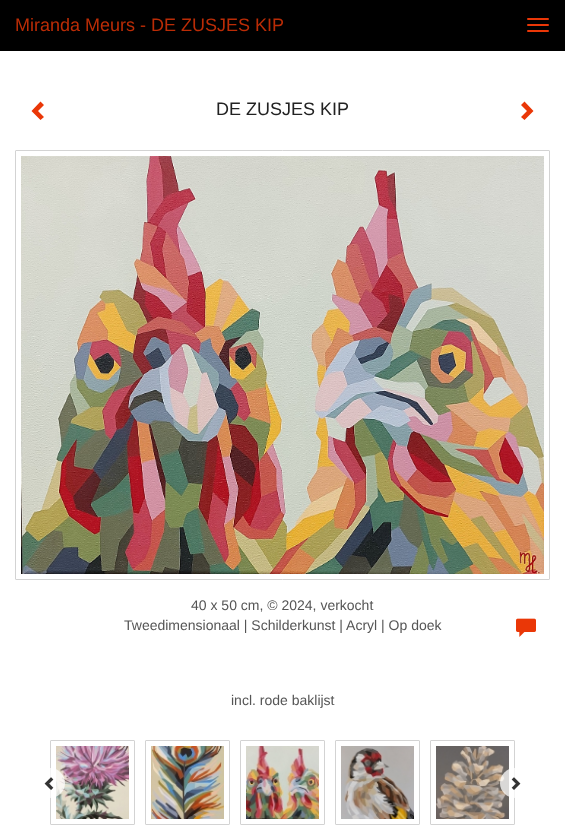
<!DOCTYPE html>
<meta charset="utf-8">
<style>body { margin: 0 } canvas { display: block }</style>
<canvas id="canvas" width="565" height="833"></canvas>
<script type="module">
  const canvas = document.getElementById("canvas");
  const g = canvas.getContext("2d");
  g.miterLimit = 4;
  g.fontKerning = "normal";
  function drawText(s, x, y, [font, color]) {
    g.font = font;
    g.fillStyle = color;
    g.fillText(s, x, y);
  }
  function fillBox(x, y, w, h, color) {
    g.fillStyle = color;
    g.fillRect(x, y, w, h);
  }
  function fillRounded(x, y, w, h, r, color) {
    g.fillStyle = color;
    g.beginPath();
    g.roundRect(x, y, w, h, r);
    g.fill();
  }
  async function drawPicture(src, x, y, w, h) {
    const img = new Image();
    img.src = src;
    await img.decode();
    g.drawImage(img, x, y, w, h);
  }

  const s1 = ["18px Liberation Sans", "#BB2C06"];
  const s2 = ["18px Liberation Sans", "#222222"];
  const s3 = ["14px Liberation Sans", "#555555"];

  fillBox(0, 0, 565, 833, "#000000");
  drawText("Miranda Meurs - DE ZUSJES KIP", 15, 31, s1);
  fillRounded(527, 18, 22, 2, 1, "#EA3707");
  fillRounded(527, 24, 22, 2, 1, "#EA3707");
  fillRounded(527, 30, 22, 2, 1, "#EA3707");
  fillBox(0, 51, 565, 782, "#FFFFFF");
  g.fillStyle = "#EA3707";
  g.beginPath();
  g.moveTo(44, 105);
  g.lineTo(38, 111);
  g.lineTo(44, 117);
  g.lineTo(40.5, 120);
  g.lineTo(31.5, 111);
  g.lineTo(40.5, 101.5);
  g.closePath();
  g.fill();
  drawText("DE ZUSJES KIP", 216, 115, s2);
  g.fillStyle = "#EA3707";
  g.beginPath();
  g.moveTo(533.5, 111);
  g.lineTo(524.5, 120);
  g.lineTo(521, 117);
  g.lineTo(527, 111);
  g.lineTo(521, 105);
  g.lineTo(524.5, 101.5);
  g.closePath();
  g.fill();
  g.beginPath();
  g.roundRect(15.5, 150.5, 534, 429, 0.5);
  g.strokeStyle = "#D3D3D3";
  g.stroke();
  await drawPicture("pic1.png", 21, 156, 523, 418);
  drawText("40 x 50 cm, © 2024, verkocht", 191, 610, s3);
  drawText("Tweedimensionaal | Schilderkunst | Acryl | Op doek", 124, 630, s3);
  await drawPicture("pic2.png", 516, 618, 20, 19);
  drawText("incl. rode baklijst", 231, 705, s3);
  g.beginPath();
  g.roundRect(50.5, 740.5, 84, 84, 0.5);
  g.stroke();
  await drawPicture("pic3.png", 56, 746, 73, 73);
  g.beginPath();
  g.roundRect(145.5, 740.5, 84, 84, 0.5);
  g.stroke();
  await drawPicture("pic4.png", 151, 746, 73, 73);
  g.beginPath();
  g.roundRect(240.5, 740.5, 84, 84, 0.5);
  g.stroke();
  await drawPicture("pic5.png", 246, 746, 73, 73);
  g.beginPath();
  g.roundRect(335.5, 740.5, 84, 84, 0.5);
  g.stroke();
  await drawPicture("pic6.png", 341, 746, 73, 73);
  g.beginPath();
  g.roundRect(430.5, 740.5, 84, 84, 0.5);
  g.stroke();
  await drawPicture("pic7.png", 436, 746, 73, 73);
  g.fillStyle = "rgba(255, 255, 255, 0.75)";
  g.beginPath();
  g.arc(50, 783, 15, 0, Math.PI * 2);
  g.fill();
  await drawPicture("pic8.png", 44, 777, 10, 13);
  g.beginPath();
  g.arc(515, 783, 15, 0, Math.PI * 2);
  g.fill();
  await drawPicture("pic9.png", 511, 777, 10, 13);
</script>
